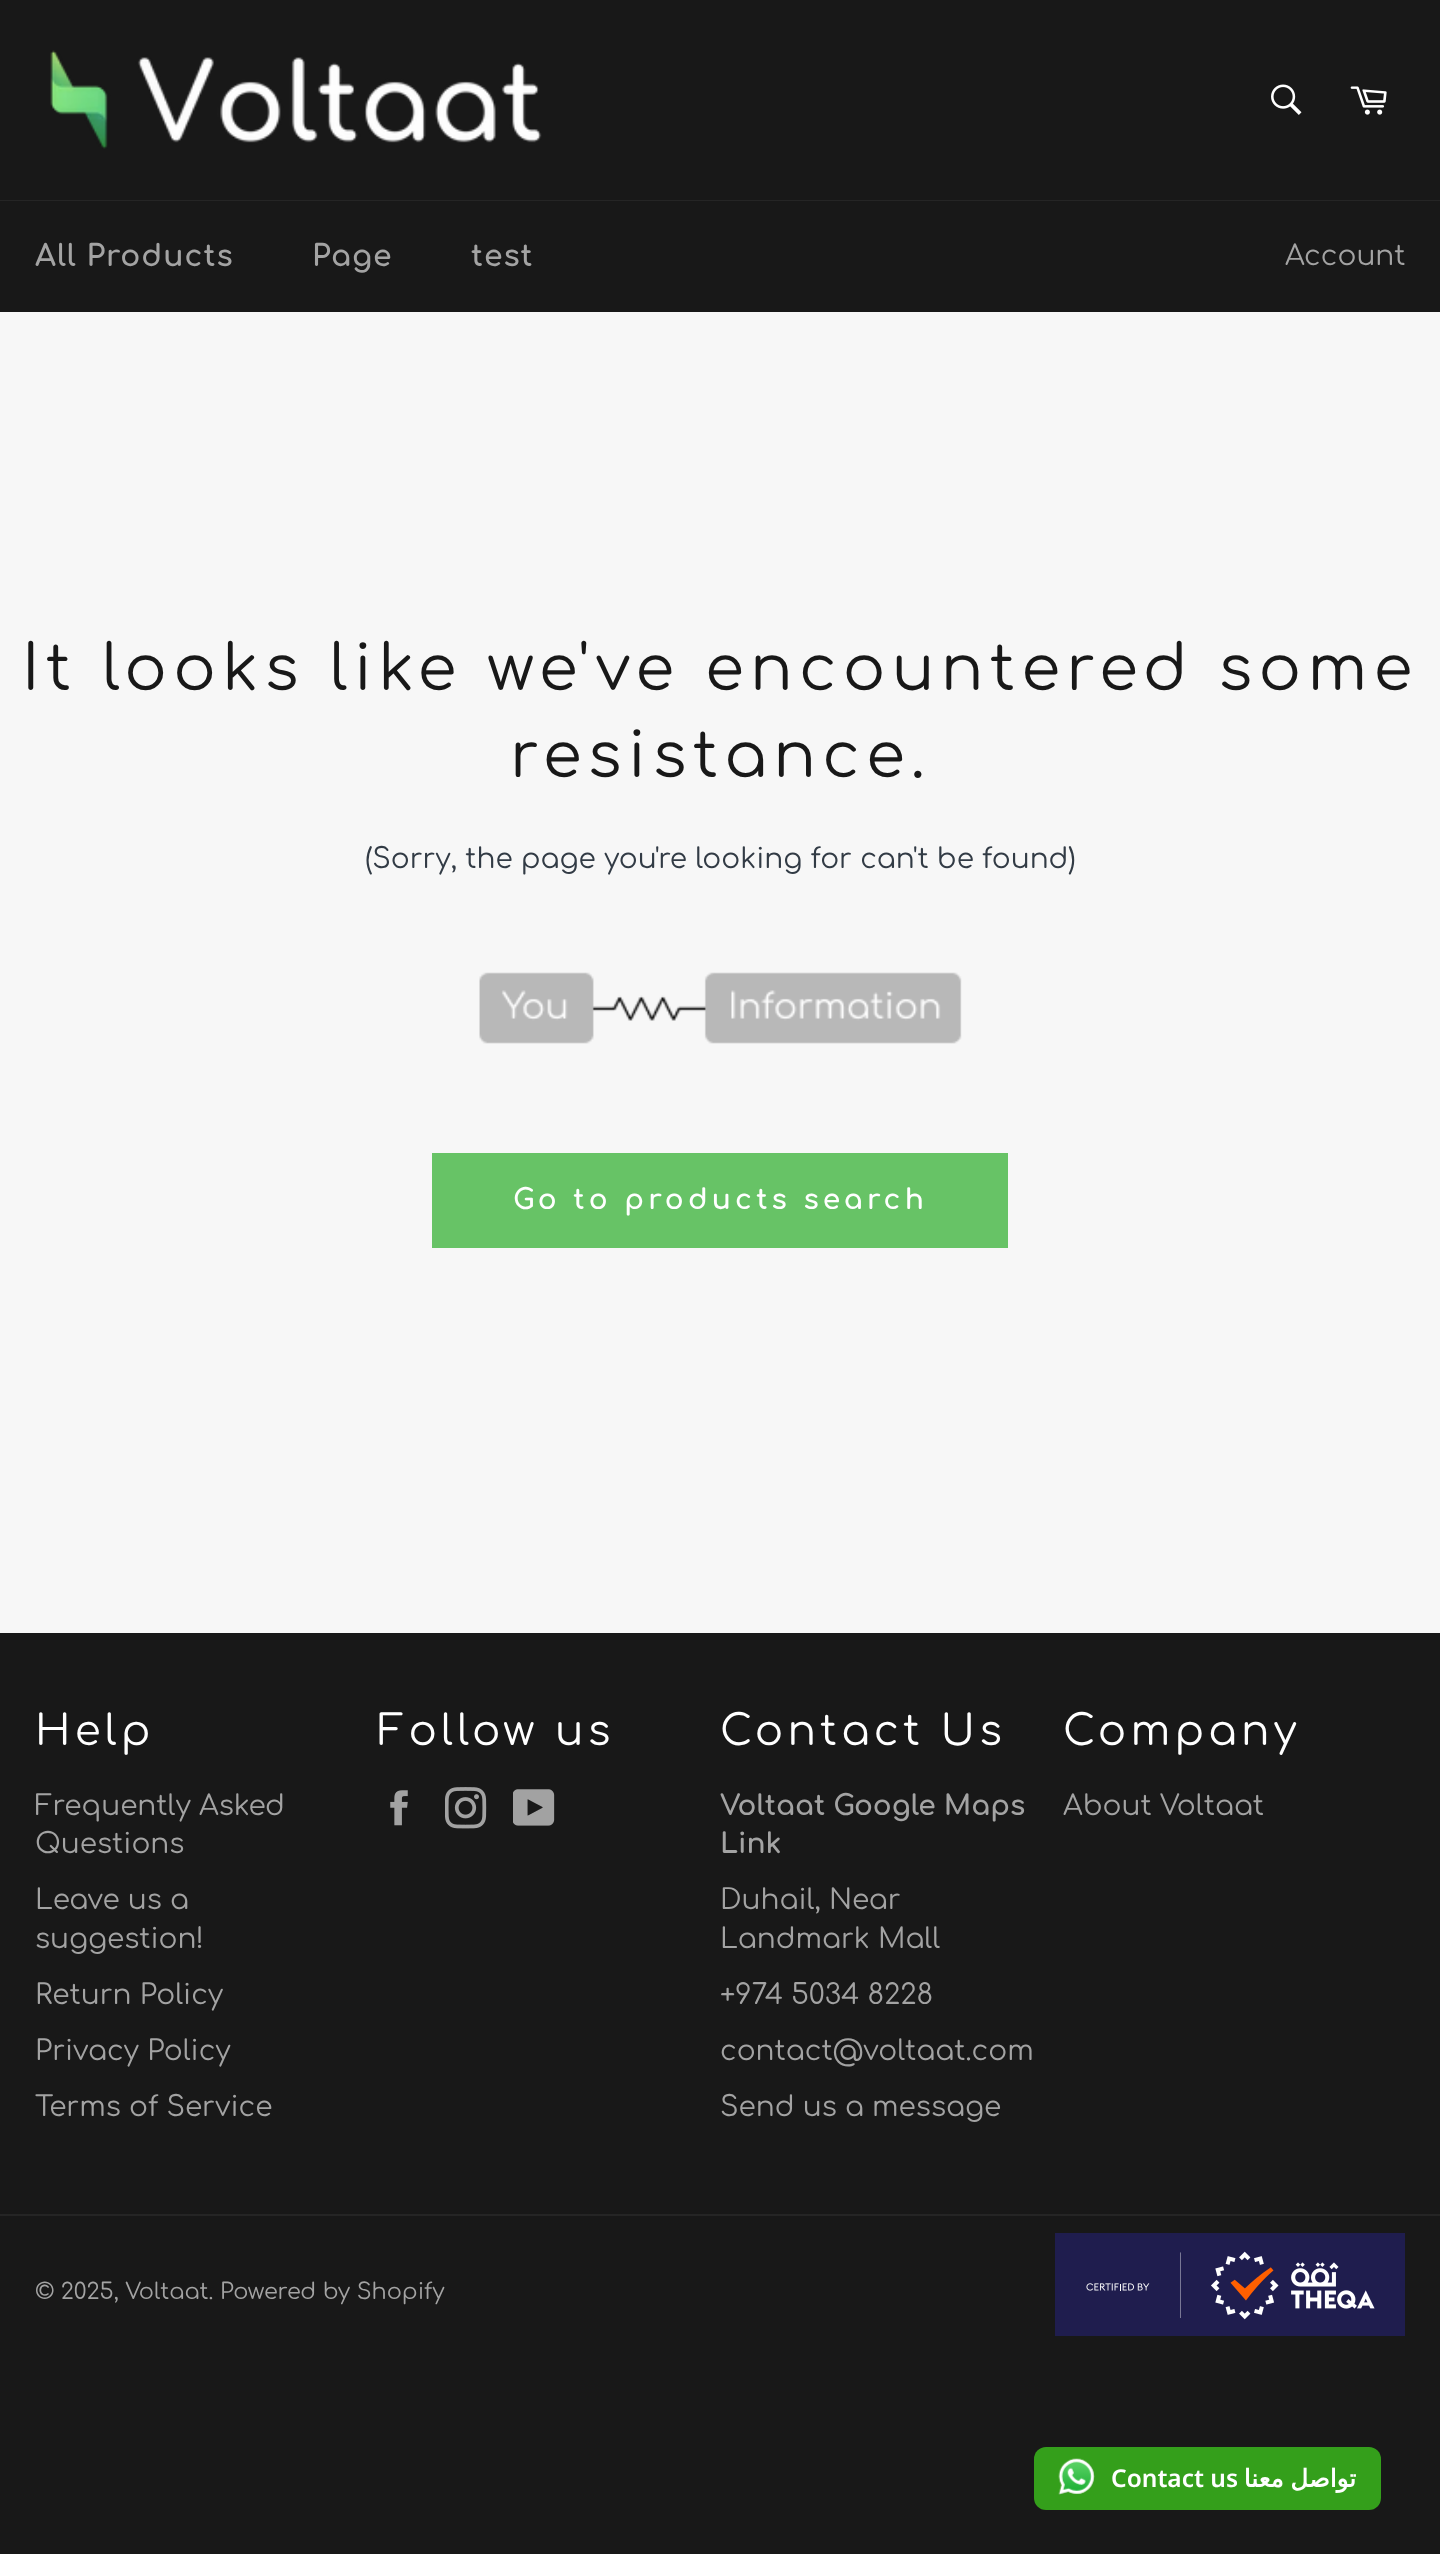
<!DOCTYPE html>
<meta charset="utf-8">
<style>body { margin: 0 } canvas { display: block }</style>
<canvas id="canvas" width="1440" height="2554"></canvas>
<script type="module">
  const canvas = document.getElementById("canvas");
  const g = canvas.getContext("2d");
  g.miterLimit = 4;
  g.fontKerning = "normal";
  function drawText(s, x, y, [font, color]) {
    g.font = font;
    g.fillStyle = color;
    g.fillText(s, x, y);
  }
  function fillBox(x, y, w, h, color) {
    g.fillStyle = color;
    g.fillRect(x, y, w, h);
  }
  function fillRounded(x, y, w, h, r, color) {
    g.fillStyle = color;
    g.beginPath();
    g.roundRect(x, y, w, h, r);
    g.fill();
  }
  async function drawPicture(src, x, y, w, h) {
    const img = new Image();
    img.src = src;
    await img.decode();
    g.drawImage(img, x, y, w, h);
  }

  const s1 = ["bold 29.75px Comfortaa", "#A3A3A3"];
  const s2 = ["28px Comfortaa", "#A3A3A3"];
  const s3 = ["63px Comfortaa", "#181818"];
  const s4 = ["28px Comfortaa", "#323B45"];
  const s5 = ["bold 28px Comfortaa", "#FFFFFF"];
  const s6 = ["42px Comfortaa", "#FFFFFF"];
  const s7 = ["bold 28px Comfortaa", "#A3A3A3"];
  const s8 = ["22.4px Comfortaa", "#A3A3A3"];
  const s9 = ["600 24.5px Noto Sans", "#FFFFFF"];
  const s10 = ["bold 24.5px DejaVu Sans", "#FFFFFF"];

  fillBox(0, 0, 1440, 2554, "#181818");
  fillBox(0, 312, 1440, 1321, "#F7F7F7");
  await drawPicture("pic1.png", 50, 50, 492, 99);
  await drawPicture("pic2.png", 1271, 84, 31, 31);
  await drawPicture("pic3.png", 1350, 86, 37, 29);
  fillBox(0, 200, 1440, 1, "#252525");
  g.letterSpacing = "1px";
  drawText("All Products", 35, 266, s1);
  drawText("Page", 312, 266, s1);
  drawText("test", 471, 266, s1);
  g.letterSpacing = "0px";
  drawText("Account", 1285, 265, s2);
  g.letterSpacing = "6.3px";
  drawText("It looks like we've encountered some", 22, 690, s3);
  drawText("resistance.", 510, 777, s3);
  g.letterSpacing = "0px";
  drawText("(Sorry, the page you're looking for can't be found)", 365, 868, s4);
  await drawPicture("pic4.png", 479, 972, 483, 72);
  fillBox(432, 1153, 576, 95, "#67C366");
  g.letterSpacing = "4.2px";
  drawText("Go to products search", 513, 1209, s5);
  drawText("Help", 35, 1745, s6);
  g.letterSpacing = "0px";
  drawText("Frequently Asked", 35, 1815, s2);
  drawText("Questions", 35, 1853, s2);
  drawText("Leave us a", 35, 1909, s2);
  drawText("suggestion!", 35, 1948, s2);
  drawText("Return Policy", 35, 2004, s2);
  drawText("Privacy Policy", 35, 2060, s2);
  drawText("Terms of Service", 35, 2116, s2);
  g.letterSpacing = "4.2px";
  drawText("Follow us", 378, 1745, s6);
  await drawPicture("pic5.png", 390, 1790, 18, 36);
  await drawPicture("pic6.png", 445, 1787, 42, 42);
  await drawPicture("pic7.png", 513, 1789, 42, 37);
  drawText("Contact Us", 720, 1745, s6);
  g.letterSpacing = "0px";
  drawText("Voltaat Google Maps", 720, 1815, s7);
  drawText("Link", 720, 1853, s7);
  drawText("Duhail, Near", 720, 1909, s2);
  drawText("Landmark Mall", 720, 1948, s2);
  drawText("+974 5034 8228", 720, 2004, s2);
  drawText("contact@voltaat.com", 720, 2060, s2);
  drawText("Send us a message", 720, 2116, s2);
  g.letterSpacing = "4.2px";
  drawText("Company", 1063, 1745, s6);
  g.letterSpacing = "0px";
  drawText("About Voltaat", 1063, 1815, s2);
  fillBox(0, 2214, 1440, 2, "#252525");
  drawText("© 2025, Voltaat. Powered by Shopify", 35, 2299, s8);
  await drawPicture("pic8.png", 1055, 2233, 350, 103);
  fillRounded(1034, 2447, 347, 63, 12, "#349F1B");
  await drawPicture("pic9.png", 1058, 2458, 37, 37);
  drawText("Contact us", 1111, 2487, s9);
  g.wordSpacing = "-1px";
  g.direction = "rtl";
  drawText("تواصل معنا", 1356, 2487, s10);
</script>
